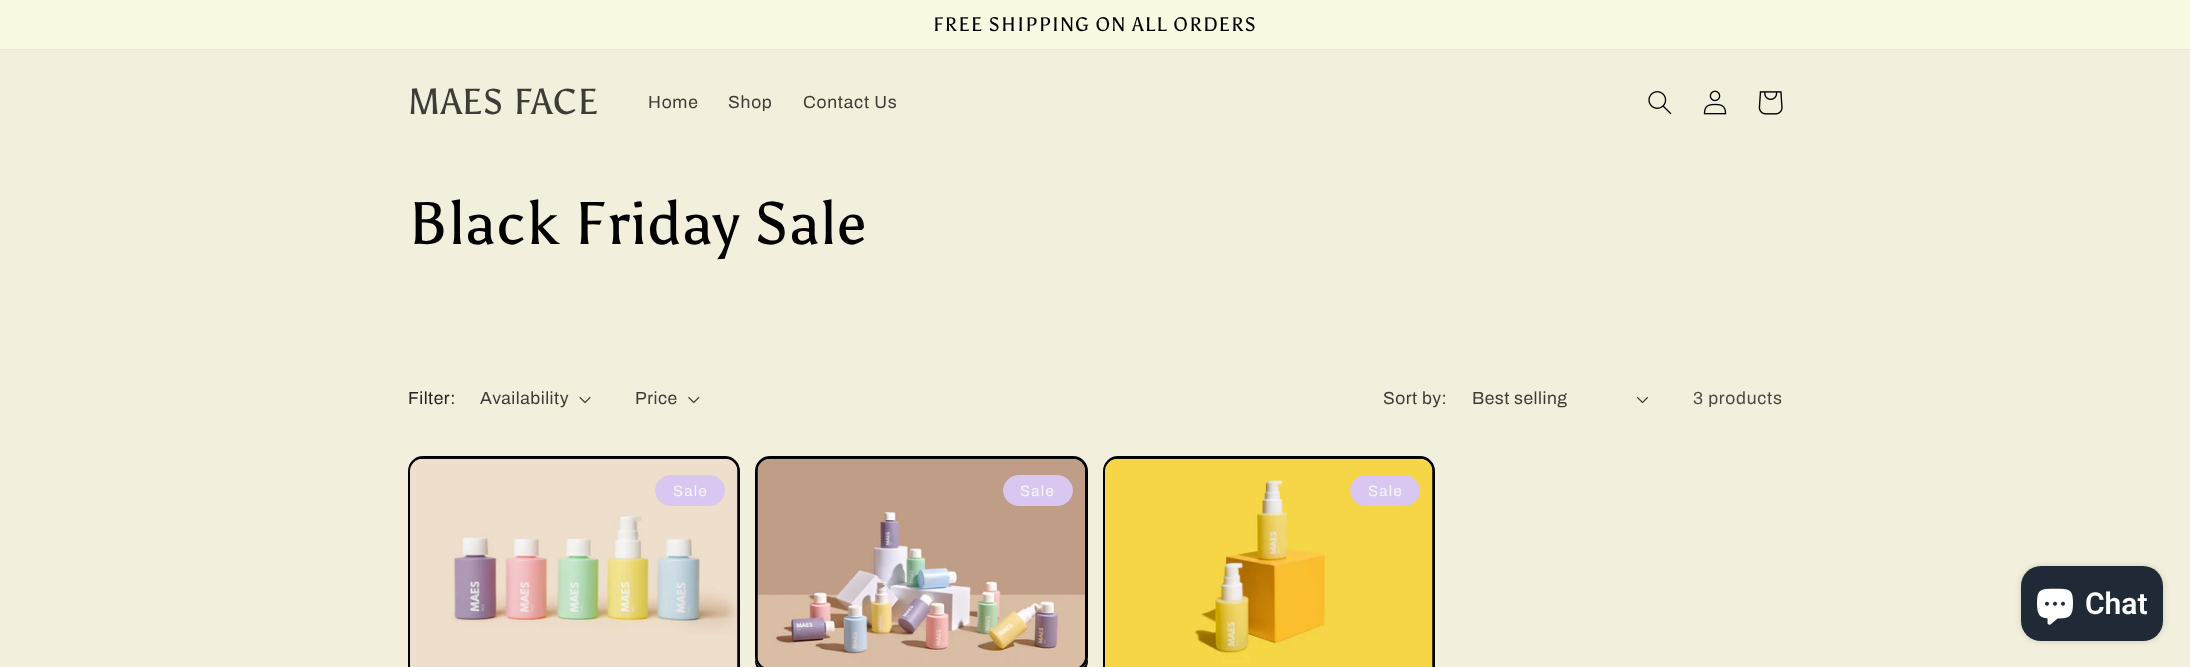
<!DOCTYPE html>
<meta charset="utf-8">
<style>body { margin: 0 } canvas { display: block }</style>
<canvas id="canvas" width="2190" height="667"></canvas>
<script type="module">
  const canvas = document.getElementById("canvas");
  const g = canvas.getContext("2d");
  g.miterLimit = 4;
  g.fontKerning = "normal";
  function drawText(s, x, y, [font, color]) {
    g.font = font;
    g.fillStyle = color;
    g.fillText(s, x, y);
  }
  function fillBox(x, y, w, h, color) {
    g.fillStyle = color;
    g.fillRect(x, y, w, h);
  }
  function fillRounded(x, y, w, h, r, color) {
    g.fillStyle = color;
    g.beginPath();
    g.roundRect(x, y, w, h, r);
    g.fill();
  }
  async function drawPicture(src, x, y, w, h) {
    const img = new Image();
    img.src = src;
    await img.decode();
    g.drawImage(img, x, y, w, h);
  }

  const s1 = ["19.5px Asul", "#000000"];
  const s2 = ["36px Asul", "#3D3C37"];
  const s3 = ["17.5px Archivo", "#3D3C37"];
  const s4 = ["60px Asul", "#000000"];
  const s5 = ["17.5px Archivo", "#242421"];
  const s6 = ["17.5px Archivo", "#494842"];
  const s7 = ["15px Archivo", "#F5F6F7"];
  const s8 = ["600 30px Roboto", "#FFFFFF"];

  fillBox(0, 0, 2190, 667, "#F2EFDD");
  fillBox(0, 0, 2190, 49, "#FAF9E1");
  fillBox(0, 49, 2190, 1, "#E6E5CF");
  g.letterSpacing = "1.25px";
  drawText("FREE SHIPPING ON ALL ORDERS", 933, 31, s1);
  g.letterSpacing = "0.9px";
  drawText("MAES FACE", 408, 114, s2);
  g.letterSpacing = "0.75px";
  drawText("Home", 648, 108, s3);
  drawText("Shop", 728, 108, s3);
  drawText("Contact Us", 803, 108, s3);
  await drawPicture("pic1.png", 1648, 91, 24, 24);
  await drawPicture("pic2.png", 1703, 90, 24, 25);
  await drawPicture("pic3.png", 1758, 91, 25, 24);
  g.letterSpacing = "0.9px";
  drawText("Black Friday Sale", 408, 244, s4);
  g.letterSpacing = "0.5px";
  drawText("Filter:", 408, 404, s5);
  drawText("Availability", 480, 404, s3);
  await drawPicture("pic4.png", 579, 397, 12, 6);
  drawText("Price", 635, 404, s3);
  await drawPicture("pic5.png", 688, 396, 12, 8);
  drawText("Sort by:", 1383, 404, s3);
  drawText("Best selling", 1472, 404, s3);
  await drawPicture("pic6.png", 1636, 396, 13, 8);
  g.letterSpacing = "0.75px";
  drawText("3 products", 1693, 404, s6);
  g.beginPath();
  g.roundRect(409.5, 457.5, 329, 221, 13.5);
  g.strokeStyle = "#000000";
  g.lineWidth = 3;
  g.stroke();
  await drawPicture("pic7.png", 410, 458, 328, 209);
  g.fillStyle = "#D9C7F1";
  g.beginPath();
  g.roundRect(655.5, 475.5, 69, 30, 15);
  g.fill();
  g.strokeStyle = "#D9C7F1";
  g.lineWidth = 1;
  g.stroke();
  g.letterSpacing = "1.25px";
  drawText("Sale", 673, 496, s7);
  g.fillStyle = "#000000";
  g.beginPath();
  g.moveTo(755, 656);
  g.lineTo(755, 661);
  g.bezierCurveTo(755, 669, 762, 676, 770, 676);
  g.lineTo(1073, 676);
  g.bezierCurveTo(1081, 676, 1088, 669, 1088, 661);
  g.lineTo(1088, 476);
  g.lineTo(1088, 472);
  g.lineTo(1088, 656);
  g.bezierCurveTo(1088, 665, 1081, 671, 1072, 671);
  g.lineTo(770, 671);
  g.bezierCurveTo(762, 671, 755, 665, 755, 656);
  g.closePath();
  g.fill();
  g.fillStyle = "#F2EFDD";
  g.beginPath();
  g.roundRect(756.5, 457.5, 330, 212, 13.5);
  g.fill();
  g.strokeStyle = "#000000";
  g.lineWidth = 3;
  g.stroke();
  await drawPicture("pic8.png", 757, 458, 328, 209);
  g.fillStyle = "#D9C7F1";
  g.beginPath();
  g.roundRect(1003.5, 475.5, 69, 30, 15);
  g.fill();
  g.strokeStyle = "#D9C7F1";
  g.lineWidth = 1;
  g.stroke();
  drawText("Sale", 1020, 496, s7);
  g.beginPath();
  g.roundRect(1104.5, 457.5, 329, 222, 13.5);
  g.strokeStyle = "#000000";
  g.lineWidth = 3;
  g.stroke();
  await drawPicture("pic9.png", 1105, 458, 328, 209);
  g.fillStyle = "#D9C7F1";
  g.beginPath();
  g.roundRect(1350.5, 475.5, 69, 30, 15);
  g.fill();
  g.strokeStyle = "#D9C7F1";
  g.lineWidth = 1;
  g.stroke();
  drawText("Sale", 1368, 496, s7);
  g.fillStyle = "rgba(0, 0, 0, 0.15)";
  g.filter = "blur(3px)";
  g.beginPath();
  g.roundRect(2021, 566, 142, 75, 20);
  g.fill();
  g.filter = "none";
  fillRounded(2021, 566, 142, 75, 20, "#202A36");
  await drawPicture("pic10.png", 2037, 588, 36, 37);
  g.letterSpacing = "0px";
  drawText("Chat", 2085, 614, s8);
</script>
